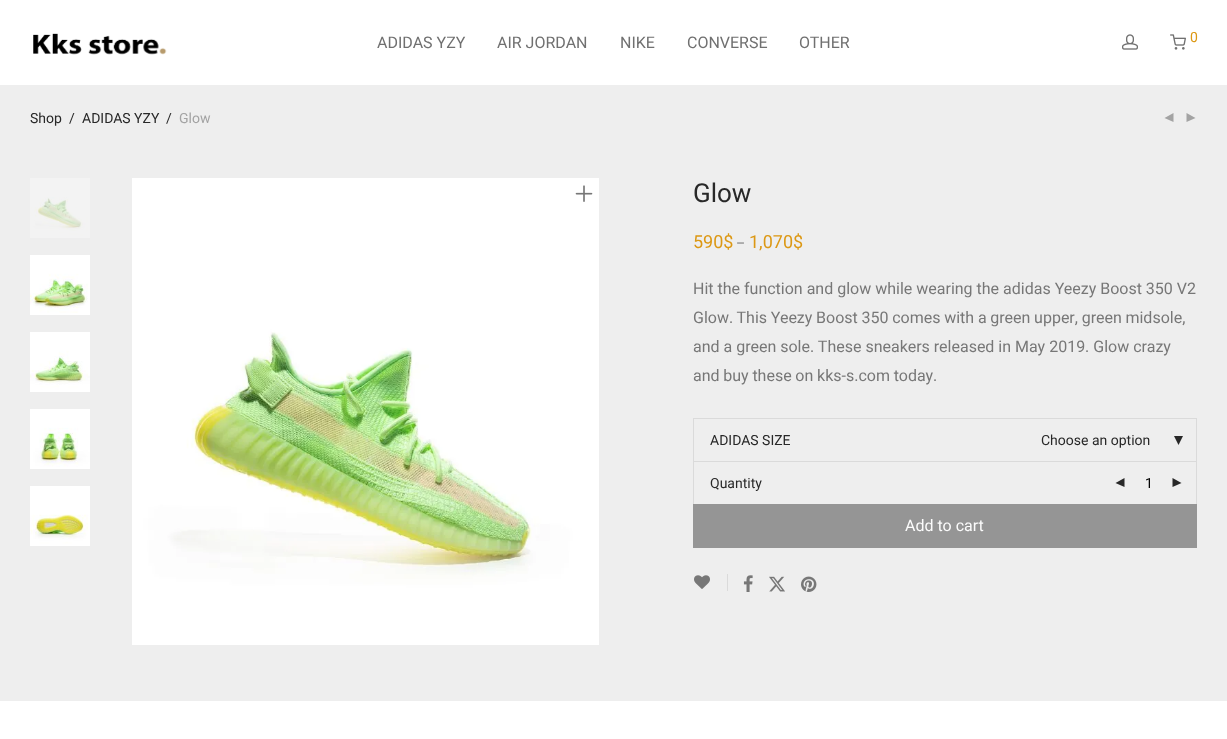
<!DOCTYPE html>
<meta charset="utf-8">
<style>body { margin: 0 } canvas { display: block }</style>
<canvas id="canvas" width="1227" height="739"></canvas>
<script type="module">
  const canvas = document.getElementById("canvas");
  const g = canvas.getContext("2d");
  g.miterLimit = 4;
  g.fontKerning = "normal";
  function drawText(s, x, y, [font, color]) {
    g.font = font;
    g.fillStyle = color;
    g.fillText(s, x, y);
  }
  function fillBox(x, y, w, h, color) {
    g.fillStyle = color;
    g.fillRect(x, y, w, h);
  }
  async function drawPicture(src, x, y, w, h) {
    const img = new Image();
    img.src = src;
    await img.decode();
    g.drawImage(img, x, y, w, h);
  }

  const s1 = ["16px Roboto", "#707070"];
  const s2 = ["14px Roboto", "#DC9814"];
  const s3 = ["14px Roboto", "#282828"];
  const s4 = ["14px Roboto", "#A3A3A3"];
  const s5 = ["26px Roboto", "#282828"];
  const s6 = ["18px Roboto", "#DC9814"];
  const s7 = ["14px Roboto", "#777777"];
  const s8 = ["16px Roboto", "#777777"];
  const s9 = ["14px Roboto", "#000000"];
  const s10 = ["16px Roboto", "#FCFCFC"];

  fillBox(0, 0, 1227, 739, "#FFFFFF");
  await drawPicture("pic1.png", 33, 33, 134, 22);
  drawText("ADIDAS YZY", 377, 48, s1);
  drawText("AIR JORDAN", 497, 48, s1);
  drawText("NIKE", 620, 48, s1);
  drawText("CONVERSE", 687, 48, s1);
  drawText("OTHER", 799, 48, s1);
  await drawPicture("pic2.png", 1122, 34, 16, 16);
  await drawPicture("pic3.png", 1170, 34, 16, 16);
  drawText("0", 1190, 42, s2);
  fillBox(0, 85, 1227, 616, "#EEEEEE");
  drawText("Shop", 30, 123, s3);
  drawText("/", 69, 123, s3);
  drawText("ADIDAS YZY", 82, 123, s3);
  drawText("/", 166, 123, s3);
  drawText("Glow", 179, 123, s4);
  g.beginPath();
  g.moveTo(1173.5, 113);
  g.lineTo(1173.5, 122);
  g.lineTo(1164.5, 118);
  g.closePath();
  g.moveTo(1186.5, 113);
  g.lineTo(1186.5, 122);
  g.lineTo(1195.5, 118);
  g.closePath();
  g.fill();
  await drawPicture("pic4.png", 30, 178, 60, 60);
  await drawPicture("pic5.png", 30, 255, 60, 60);
  await drawPicture("pic6.png", 30, 332, 60, 60);
  await drawPicture("pic7.png", 30, 409, 60, 60);
  await drawPicture("pic8.png", 30, 486, 60, 60);
  await drawPicture("pic9.png", 132, 178, 467, 467);
  await drawPicture("pic10.png", 575, 185, 18, 17);
  drawText("Glow", 693, 202, s5);
  drawText("590$", 693, 248, s6);
  drawText("–", 736, 248, s7);
  drawText("1,070$", 749, 248, s6);
  drawText("Hit the function and glow while wearing the adidas Yeezy Boost 350 V2", 693, 294, s8);
  g.wordSpacing = "-0.25px";
  drawText("Glow. This Yeezy Boost 350 comes with a green upper, green midsole,", 693, 323, s8);
  g.wordSpacing = "0px";
  drawText("and a green sole. These sneakers released in May 2019. Glow crazy", 693, 352, s8);
  g.wordSpacing = "-0.25px";
  drawText("and buy these on kks-s.com today.", 693, 381, s8);
  fillBox(693, 418, 504, 1, "#DADADA");
  fillBox(693, 461, 206, 1, "#DADADA");
  fillBox(693, 418, 1, 86, "#DADADA");
  g.wordSpacing = "0px";
  drawText("ADIDAS SIZE", 710, 445, s3);
  fillBox(1196, 418, 1, 44, "#DADADA");
  fillBox(899, 461, 298, 1, "#DADADA");
  drawText("Choose an option", 1041, 445, s3);
  g.beginPath();
  g.moveTo(1183, 436);
  g.lineTo(1174, 436);
  g.lineTo(1178.5, 445);
  g.closePath();
  g.fill();
  fillBox(1196, 461, 1, 43, "#DADADA");
  drawText("Quantity", 710, 488, s3);
  g.beginPath();
  g.moveTo(1124.5, 478);
  g.lineTo(1124.5, 487);
  g.lineTo(1115.5, 483);
  g.closePath();
  g.fill();
  drawText("1", 1145, 488, s9);
  g.fillStyle = "#282828";
  g.beginPath();
  g.moveTo(1172.5, 478);
  g.lineTo(1172.5, 487);
  g.lineTo(1181.5, 483);
  g.closePath();
  g.fill();
  fillBox(693, 504, 504, 44, "#959595");
  drawText("Add to cart", 905, 531, s10);
  fillBox(727, 574, 1, 17, "#DADADA");
  await drawPicture("pic11.png", 694, 575, 16, 14);
  await drawPicture("pic12.png", 743, 575, 10, 17);
  await drawPicture("pic13.png", 769, 576, 16, 16);
  await drawPicture("pic14.png", 801, 576, 16, 16);
</script>
